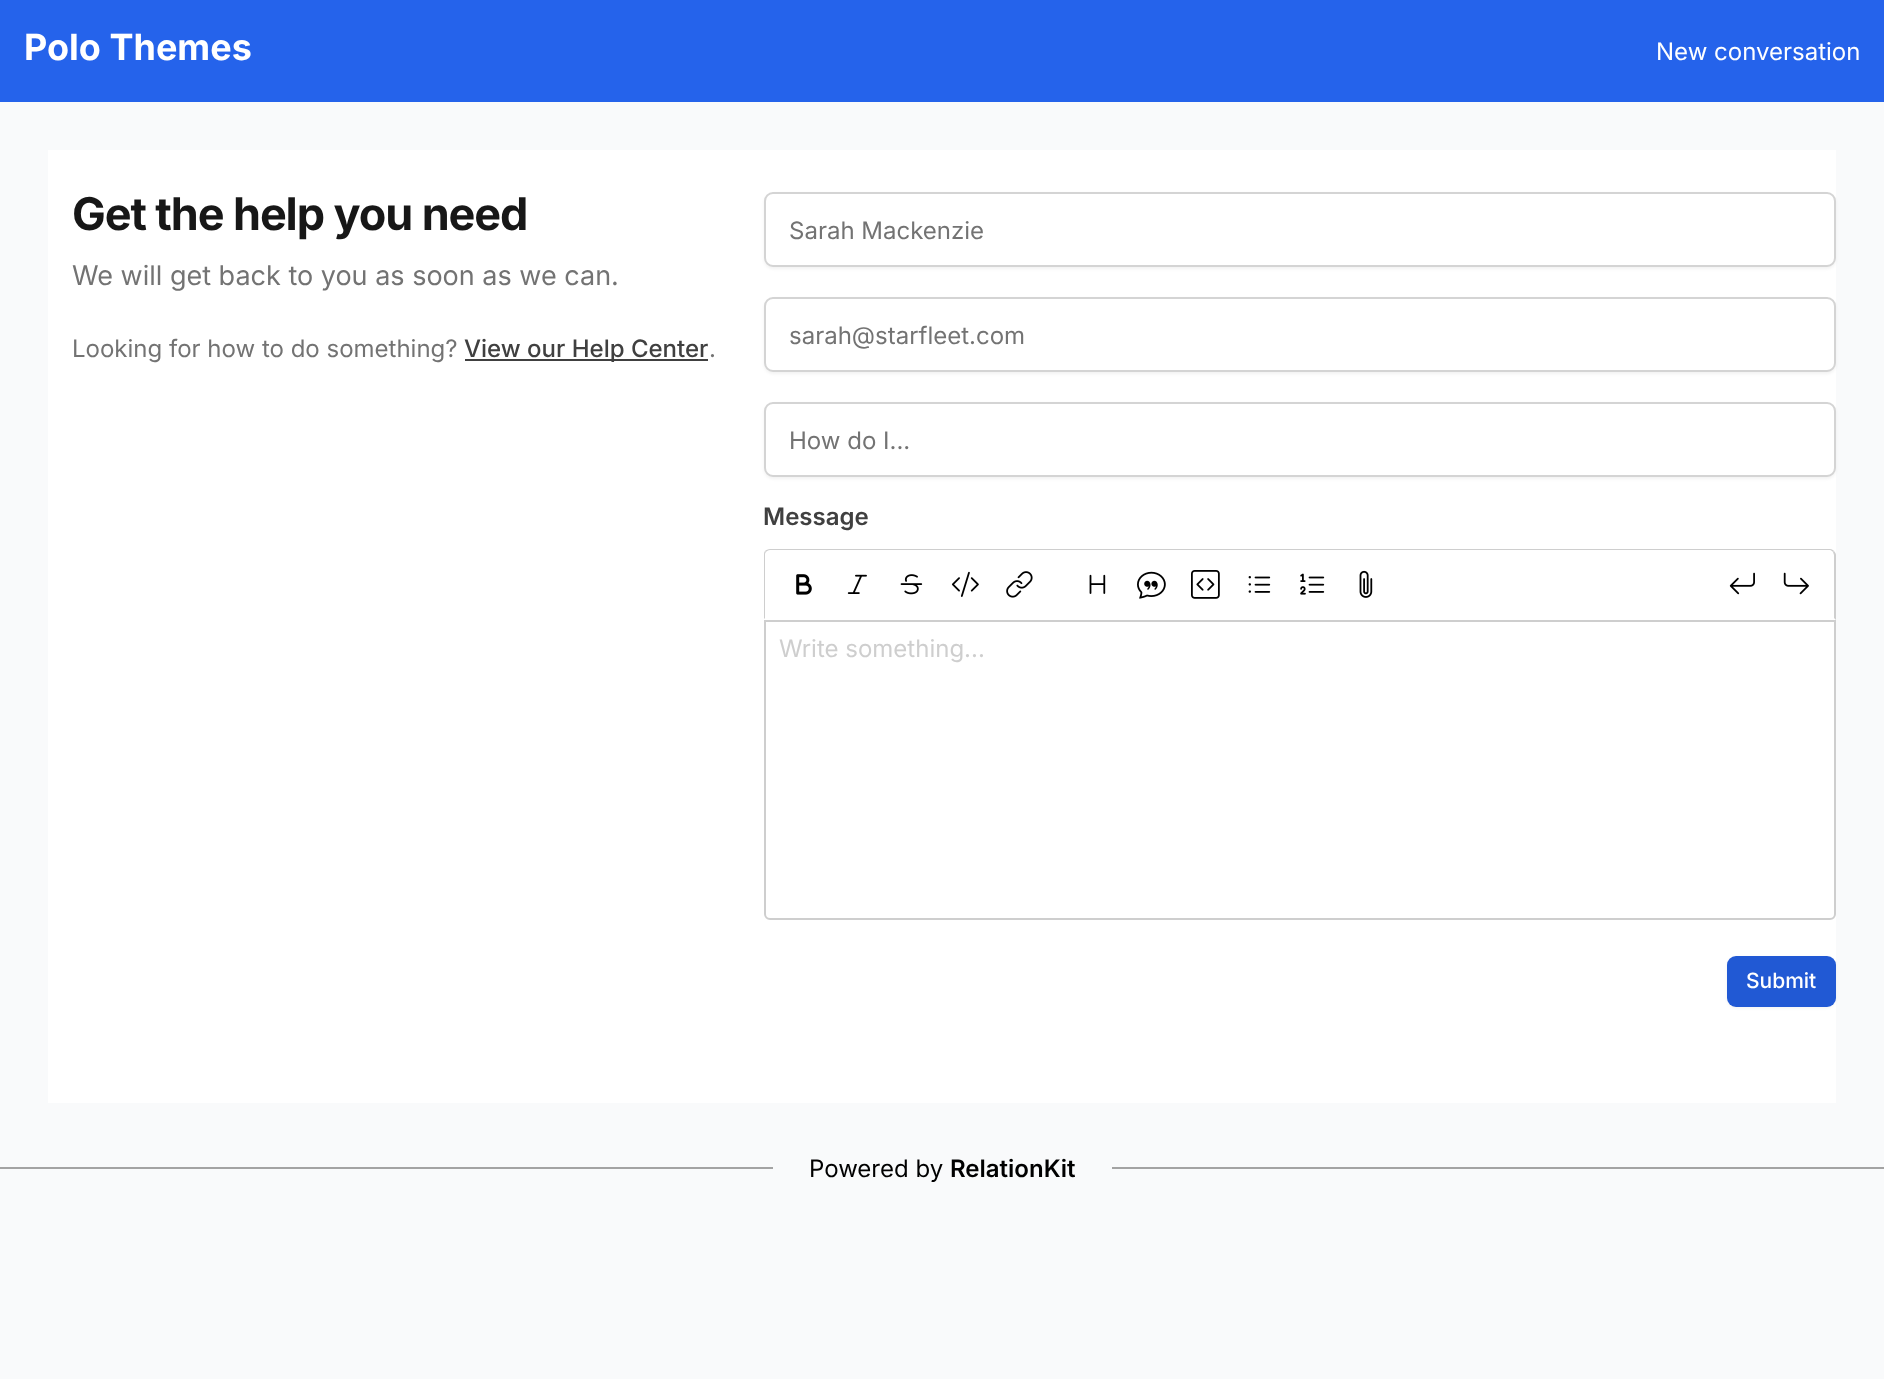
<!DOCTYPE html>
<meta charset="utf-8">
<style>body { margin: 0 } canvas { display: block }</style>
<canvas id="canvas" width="1884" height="1379"></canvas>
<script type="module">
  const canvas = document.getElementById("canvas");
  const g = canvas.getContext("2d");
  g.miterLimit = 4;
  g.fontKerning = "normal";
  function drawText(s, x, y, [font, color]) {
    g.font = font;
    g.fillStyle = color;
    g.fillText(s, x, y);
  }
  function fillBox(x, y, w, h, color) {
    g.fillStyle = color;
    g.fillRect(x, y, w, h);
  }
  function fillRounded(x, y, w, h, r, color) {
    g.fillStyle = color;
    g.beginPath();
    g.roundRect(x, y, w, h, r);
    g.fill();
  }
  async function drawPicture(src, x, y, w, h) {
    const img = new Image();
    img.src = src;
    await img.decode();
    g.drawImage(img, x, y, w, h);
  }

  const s1 = ["bold 36px Inter", "#FFFFFF"];
  const s2 = ["24px Inter", "#FFFFFF"];
  const s3 = ["bold 45px Inter", "#171717"];
  const s4 = ["27px Inter", "#737373"];
  const s5 = ["24px Inter", "#737373"];
  const s6 = ["500 24px Inter", "#404040"];
  const s7 = ["600 24px Inter", "#404040"];
  const s8 = ["24px Inter", "#CECECE"];
  const s9 = ["500 21px Inter", "#FFFFFF"];
  const s10 = ["24px Inter", "#000000"];
  const s11 = ["600 24px Inter", "#000000"];

  fillBox(0, 0, 1884, 1379, "#F9FAFB");
  fillBox(0, 0, 1884, 102, "#2563EB");
  drawText("Polo Themes", 24, 60, s1);
  drawText("New conversation", 1656, 60, s2);
  fillBox(48, 150, 1788, 953, "#FFFFFF");
  g.letterSpacing = "-1.1px";
  drawText("Get the help you need", 72, 230, s3);
  g.letterSpacing = "0px";
  drawText("We will get back to you as soon as we can.", 72, 285, s4);
  drawText("Looking for how to do something?", 72, 357, s5);
  fillBox(465, 359, 243, 2, "#404040");
  drawText("View our Help Center", 464, 357, s6);
  drawText(".", 709, 357, s5);
  g.fillStyle = "rgba(0, 0, 0, 0.05)";
  g.filter = "blur(1.5px)";
  g.beginPath();
  g.roundRect(764, 194, 1072, 75, 9);
  g.fill();
  g.filter = "none";
  g.fillStyle = "#FFFFFF";
  g.beginPath();
  g.roundRect(765, 193, 1070, 73, 8);
  g.fill();
  g.strokeStyle = "#D4D4D4";
  g.lineWidth = 2;
  g.stroke();
  drawText("Sarah Mackenzie", 789, 239, s5);
  g.fillStyle = "rgba(0, 0, 0, 0.05)";
  g.filter = "blur(1.5px)";
  g.beginPath();
  g.roundRect(764, 299, 1072, 75, 9);
  g.fill();
  g.filter = "none";
  g.fillStyle = "#FFFFFF";
  g.beginPath();
  g.roundRect(765, 298, 1070, 73, 8);
  g.fill();
  g.stroke();
  drawText("sarah@starfleet.com", 789, 344, s5);
  g.fillStyle = "rgba(0, 0, 0, 0.05)";
  g.filter = "blur(1.5px)";
  g.beginPath();
  g.roundRect(764, 404, 1072, 75, 9);
  g.fill();
  g.filter = "none";
  g.fillStyle = "#FFFFFF";
  g.beginPath();
  g.roundRect(765, 403, 1070, 73, 8);
  g.fill();
  g.stroke();
  drawText("How do I...", 789, 449, s5);
  drawText("Message", 763, 525, s7);
  g.fillStyle = "#CECECE";
  g.beginPath();
  g.moveTo(770, 549);
  g.bezierCurveTo(768, 549, 766, 550, 765, 551);
  g.lineTo(766, 552);
  g.bezierCurveTo(767, 551, 768, 550, 770, 550);
  g.lineTo(1830, 550);
  g.bezierCurveTo(1831, 550, 1832, 551, 1833, 552);
  g.lineTo(1834, 551);
  g.bezierCurveTo(1833, 550, 1832, 549, 1830, 549);
  g.closePath();
  g.fill();
  g.beginPath();
  g.moveTo(1836, 620);
  g.lineTo(1836, 555);
  g.bezierCurveTo(1836, 554, 1835, 552, 1834, 551);
  g.lineTo(1833, 552);
  g.lineTo(1834, 555);
  g.lineTo(1834, 618);
  g.closePath();
  g.fill();
  g.beginPath();
  g.moveTo(765, 551);
  g.bezierCurveTo(764, 552, 764, 554, 764, 555);
  g.lineTo(764, 619);
  g.lineTo(765, 618);
  g.lineTo(765, 555);
  g.bezierCurveTo(765, 554, 765, 553, 766, 552);
  g.closePath();
  g.fill();
  await drawPicture("pic1.png", 796, 574, 16, 21);
  await drawPicture("pic2.png", 847, 574, 20, 20);
  await drawPicture("pic3.png", 900, 574, 23, 21);
  await drawPicture("pic4.png", 951, 571, 28, 26);
  await drawPicture("pic5.png", 1006, 571, 27, 27);
  await drawPicture("pic6.png", 1089, 574, 17, 20);
  await drawPicture("pic7.png", 1137, 571, 29, 28);
  await drawPicture("pic8.png", 1191, 570, 29, 29);
  await drawPicture("pic9.png", 1248, 576, 23, 17);
  await drawPicture("pic10.png", 1300, 573, 25, 22);
  await drawPicture("pic11.png", 1359, 570, 14, 28);
  await drawPicture("pic12.png", 1729, 572, 26, 23);
  await drawPicture("pic13.png", 1783, 572, 26, 23);
  g.beginPath();
  g.roundRect(765, 621, 1070, 298, [0, 0, 5, 5]);
  g.strokeStyle = "#CECECE";
  g.stroke();
  drawText("Write something...", 779, 657, s8);
  g.fillStyle = "rgba(0, 0, 0, 0.05)";
  g.filter = "blur(1.5px)";
  g.beginPath();
  g.roundRect(1727, 957, 109, 51, 9);
  g.fill();
  g.filter = "none";
  fillRounded(1727, 956, 109, 51, 9, "#2159D4");
  drawText("Submit", 1746, 988, s9);
  fillBox(0, 1167, 773, 2, "#A3A3A3");
  drawText("Powered by", 809, 1177, s10);
  drawText("RelationKit", 950, 1177, s11);
  fillBox(1112, 1167, 772, 2, "#A3A3A3");
</script>
